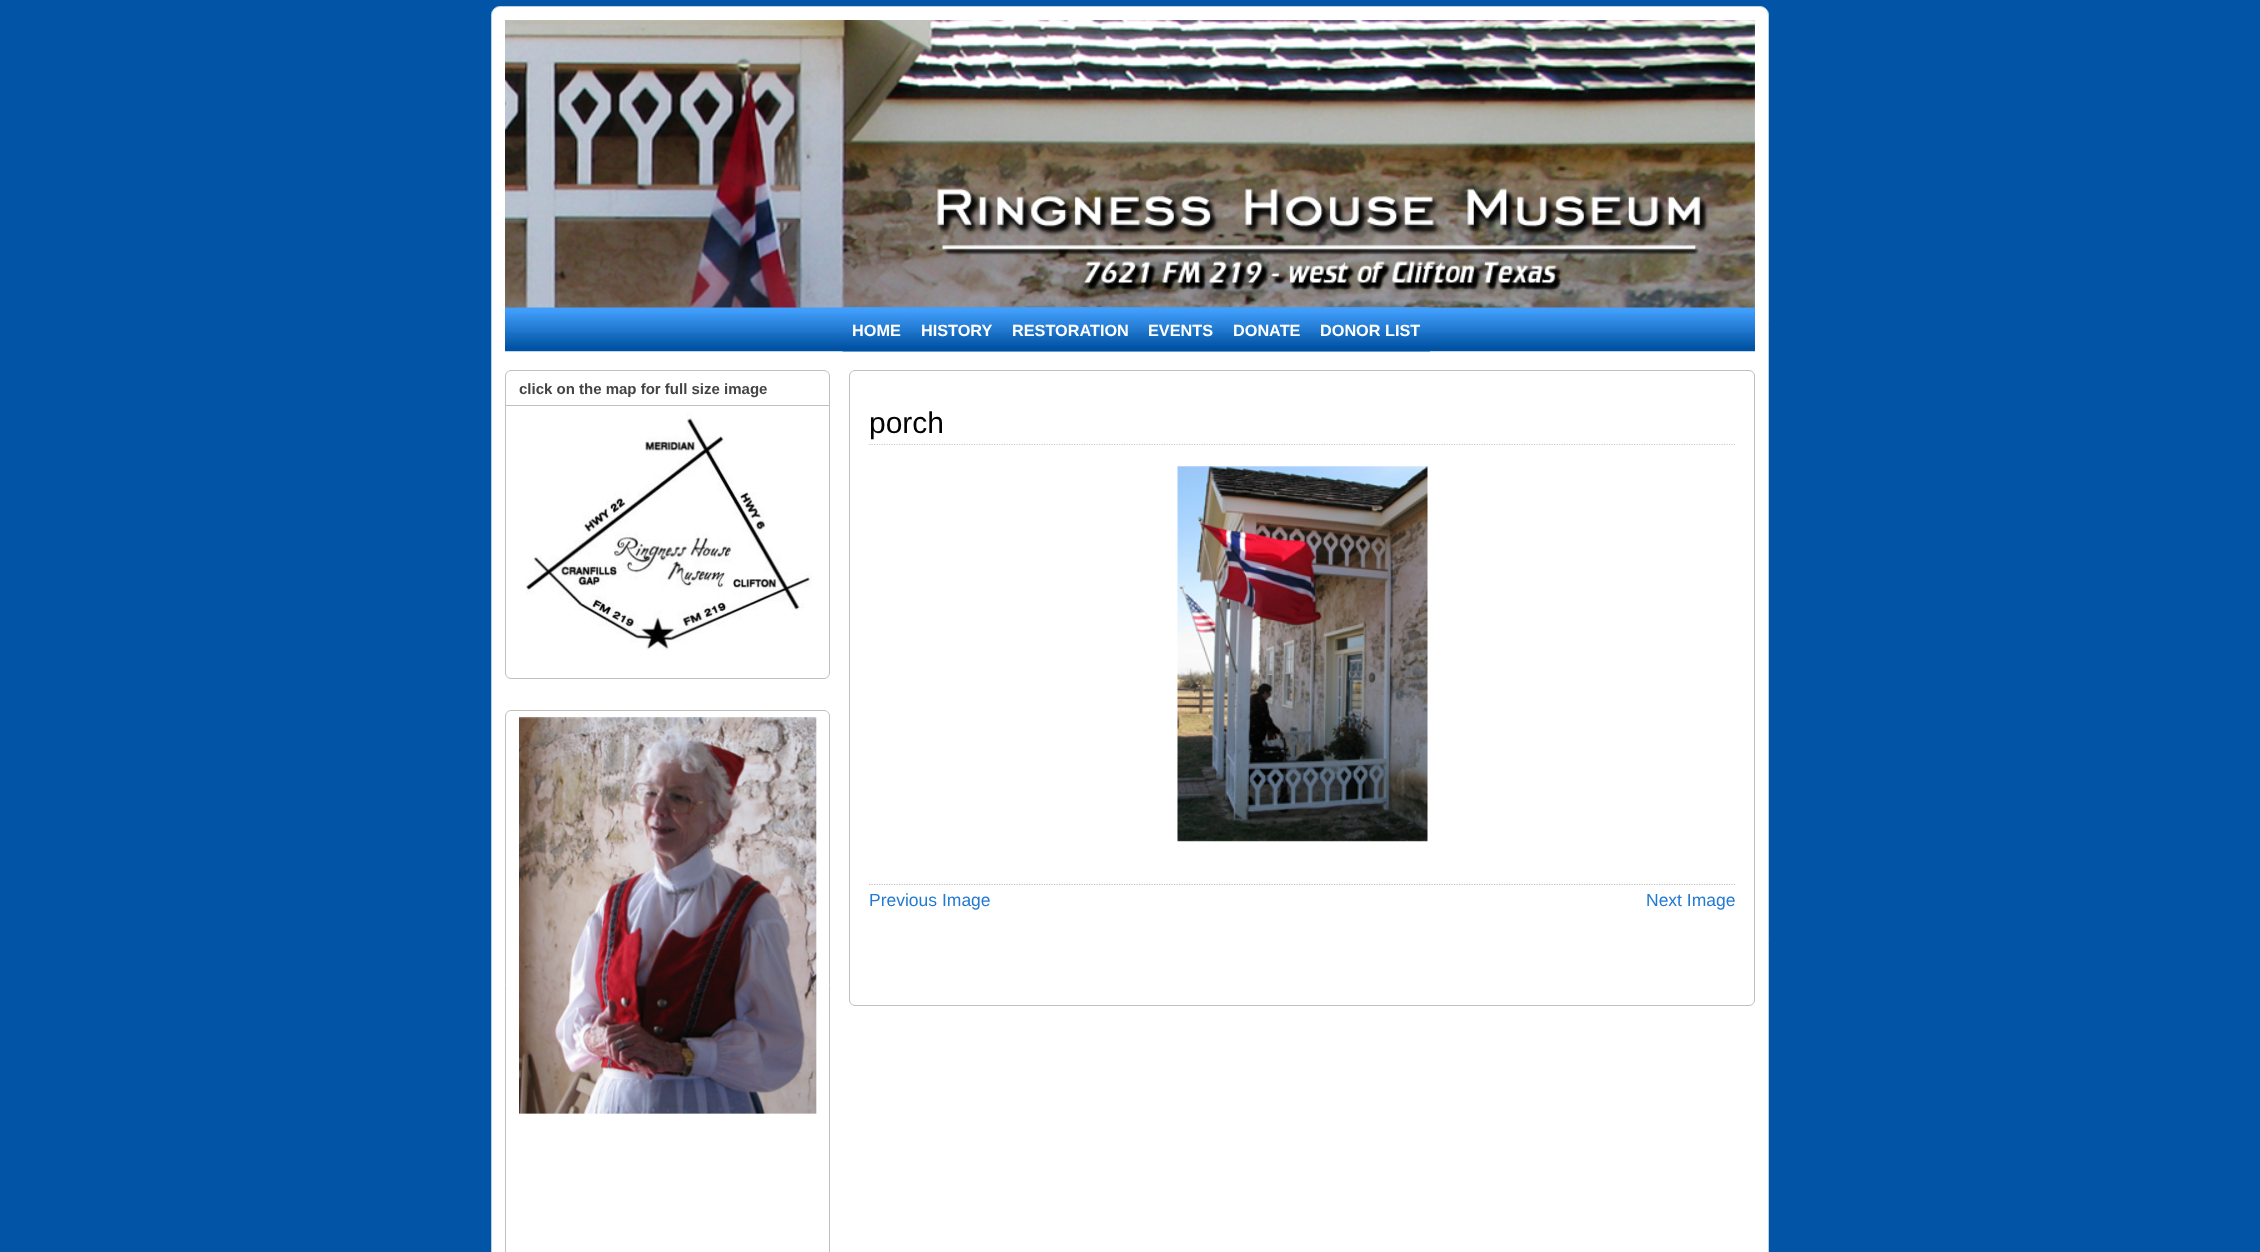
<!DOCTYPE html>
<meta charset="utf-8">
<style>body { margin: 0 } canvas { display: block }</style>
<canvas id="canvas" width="2260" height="1252"></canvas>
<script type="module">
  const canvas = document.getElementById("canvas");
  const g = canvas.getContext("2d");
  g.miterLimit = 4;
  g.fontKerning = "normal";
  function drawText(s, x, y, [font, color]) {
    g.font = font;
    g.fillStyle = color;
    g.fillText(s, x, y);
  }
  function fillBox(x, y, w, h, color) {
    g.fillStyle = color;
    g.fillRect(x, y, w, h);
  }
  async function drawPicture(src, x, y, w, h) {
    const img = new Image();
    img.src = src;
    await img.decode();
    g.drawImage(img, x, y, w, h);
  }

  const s1 = ["bold 16.25px Liberation Sans", "#FFFFFF"];
  const s2 = ["bold 15px Liberation Sans", "#444444"];
  const s3 = ["30px Liberation Sans", "#000000"];
  const s4 = ["17.5px Liberation Sans", "#227AD1"];

  fillBox(0, 0, 2260, 1252, "#0254A6");
  g.fillStyle = "#FFFFFF";
  g.beginPath();
  g.roundRect(491.5, 6.5, 1277, 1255, 8.5);
  g.fill();
  g.strokeStyle = "#B6D1E4";
  g.stroke();
  await drawPicture("pic1.png", 505, 20, 1250, 288);
  await drawPicture("pic2.png", 505, 307, 1250, 45);
  await drawPicture("pic3.png", 842, 307, 70, 45);
  await drawPicture("pic4.png", 842, 307, 70, 45);
  drawText("HOME", 852, 336, s1);
  await drawPicture("pic5.png", 911, 307, 92, 45);
  await drawPicture("pic6.png", 911, 307, 92, 45);
  drawText("HISTORY", 921, 336, s1);
  await drawPicture("pic7.png", 1002, 307, 137, 45);
  await drawPicture("pic8.png", 1002, 307, 137, 45);
  drawText("RESTORATION", 1012, 336, s1);
  await drawPicture("pic9.png", 1138, 307, 86, 45);
  await drawPicture("pic10.png", 1138, 307, 86, 45);
  drawText("EVENTS", 1148, 336, s1);
  await drawPicture("pic11.png", 1223, 307, 87, 45);
  await drawPicture("pic12.png", 1223, 307, 87, 45);
  drawText("DONATE", 1233, 336, s1);
  await drawPicture("pic13.png", 1310, 307, 120, 45);
  await drawPicture("pic14.png", 1310, 307, 120, 45);
  drawText("DONOR LIST", 1320, 336, s1);
  g.beginPath();
  g.roundRect(505.5, 370.5, 324, 308, 5.5);
  g.strokeStyle = "#C0C0C0";
  g.stroke();
  fillBox(506, 405, 323, 1, "#C0C0C0");
  drawText("click on the map for full size image", 519, 394, s2);
  await drawPicture("pic15.png", 525, 412, 287, 239);
  g.beginPath();
  g.roundRect(505.5, 710.5, 324, 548, 5.5);
  g.stroke();
  await drawPicture("pic16.png", 519, 717, 298, 397);
  g.beginPath();
  g.roundRect(849.5, 370.5, 905, 635, 5.5);
  g.stroke();
  g.beginPath();
  g.moveTo(869, 444.5);
  g.lineTo(1735, 444.5);
  g.strokeStyle = "#CCCCCC";
  g.lineWidth = 1.2;
  g.setLineDash([1.25, 1.25]);
  g.stroke();
  drawText("porch", 869, 433, s3);
  await drawPicture("pic17.png", 1177, 466, 251, 376);
  g.beginPath();
  g.moveTo(869, 884.5);
  g.lineTo(1735, 884.5);
  g.strokeStyle = "#C0C0C0";
  g.stroke();
  drawText("Previous Image", 869, 906, s4);
  drawText("Next Image", 1646, 906, s4);
</script>
